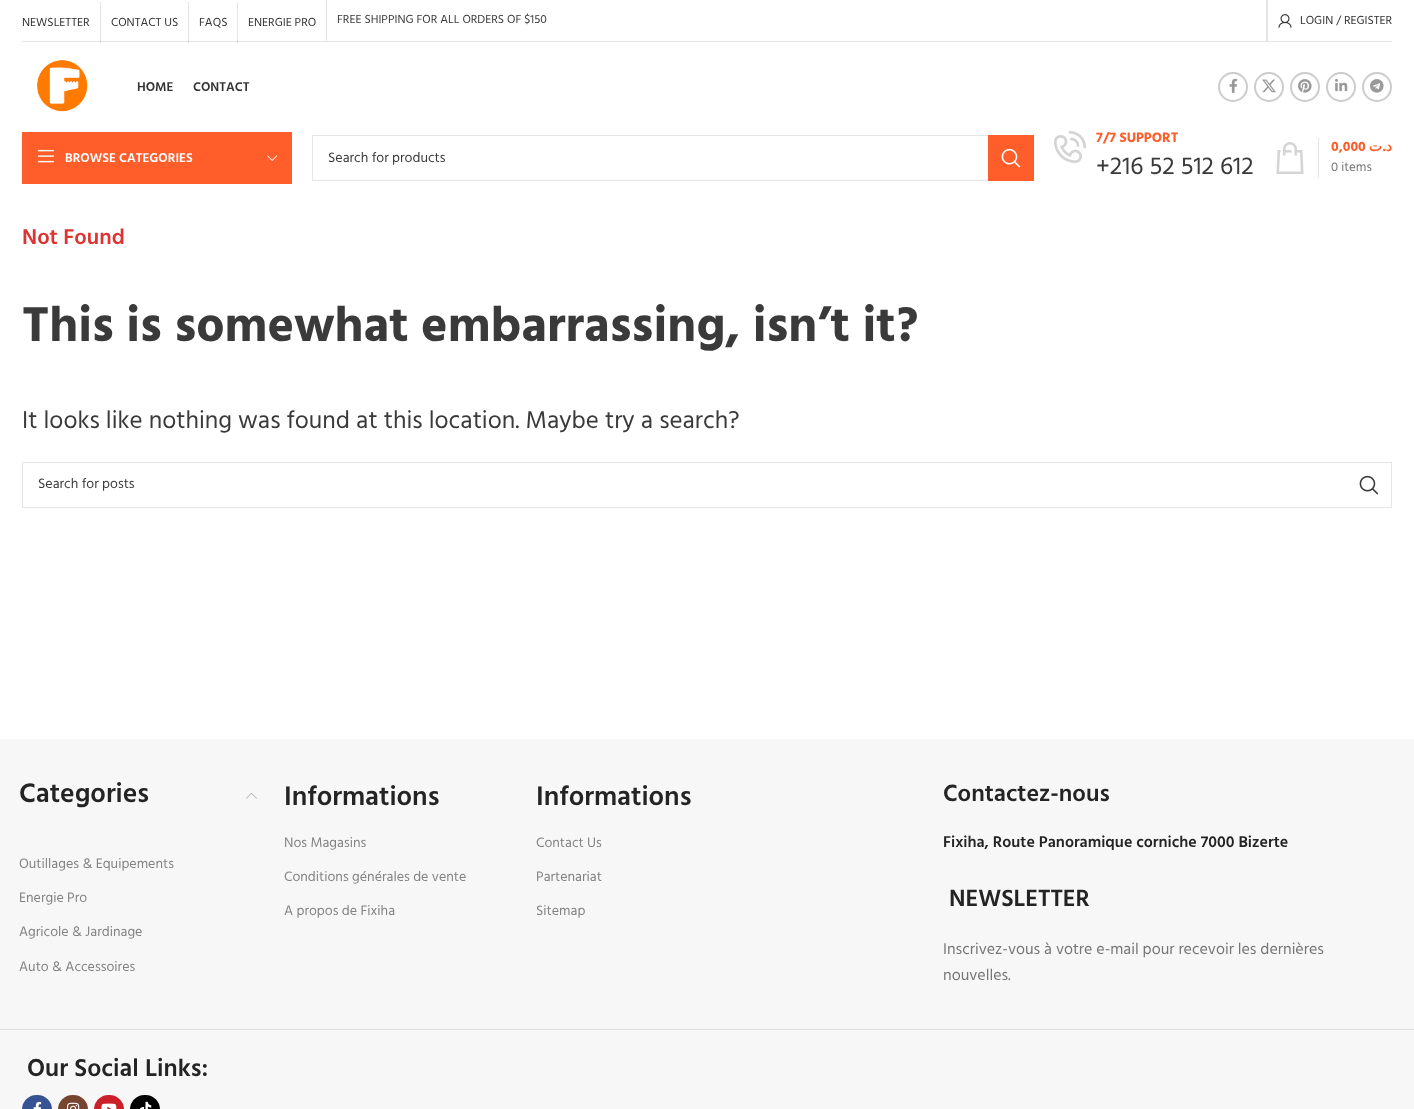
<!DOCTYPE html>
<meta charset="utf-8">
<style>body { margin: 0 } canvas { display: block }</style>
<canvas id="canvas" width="1414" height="1109"></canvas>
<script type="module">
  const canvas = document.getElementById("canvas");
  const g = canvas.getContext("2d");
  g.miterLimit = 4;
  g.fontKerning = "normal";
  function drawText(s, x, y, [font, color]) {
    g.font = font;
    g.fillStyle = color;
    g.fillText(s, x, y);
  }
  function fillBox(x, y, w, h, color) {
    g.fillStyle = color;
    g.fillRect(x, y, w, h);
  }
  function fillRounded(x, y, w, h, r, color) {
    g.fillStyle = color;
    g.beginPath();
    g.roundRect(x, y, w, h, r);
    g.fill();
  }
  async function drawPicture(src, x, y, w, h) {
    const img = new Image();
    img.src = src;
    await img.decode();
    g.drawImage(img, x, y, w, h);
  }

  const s1 = ["12px Hind", "#333333"];
  const s2 = ["12px Hind", "#3A3A3A"];
  const s3 = ["600 13px Hind", "#333333"];
  const s4 = ["600 13px Hind", "#FFFFFF"];
  const s5 = ["14px Hind", "#3A3A3A"];
  const s6 = ["bold 14px Hind", "#FF5E2B"];
  const s7 = ["25px Hind", "#3A3A3A"];
  const s8 = ["bold 14px DejaVu Sans", "#FF5E2B"];
  const s9 = ["13px Hind", "#767676"];
  const s10 = ["600 22px Hind", "#DD3333"];
  const s11 = ["bold 50px Hind", "#3A3A3A"];
  const s12 = ["600 27.5px Hind", "#242424"];
  const s13 = ["14px Hind", "#838383"];
  const s14 = ["600 24px Hind", "#242424"];
  const s15 = ["600 16px Hind", "#242424"];
  const s16 = ["16px Hind", "#767676"];
  const s17 = ["600 25px Hind", "#242424"];

  fillBox(0, 0, 1414, 1109, "#FFFFFF");
  fillBox(237, 2, 1, 41, "#E3E3E3");
  fillBox(188, 2, 1, 41, "#E3E3E3");
  fillBox(100, 2, 1, 41, "#E3E3E3");
  fillBox(22, 41, 1370, 1, "#E6E6E6");
  fillBox(237, 41, 1, 1, "#CDCDCD");
  fillBox(188, 41, 1, 1, "#CDCDCD");
  fillBox(100, 41, 1, 1, "#CDCDCD");
  drawText("NEWSLETTER", 22, 26, s1);
  drawText("CONTACT US", 111, 26, s1);
  drawText("FAQS", 199, 26, s1);
  drawText("ENERGIE PRO", 248, 26, s1);
  fillBox(326, 0, 1, 41, "#E4E4E4");
  drawText("FREE SHIPPING FOR ALL ORDERS OF $150", 337, 23, s2);
  fillBox(1266, 0, 2, 41, "#E4E4E4");
  await drawPicture("pic1.png", 1278, 14, 14, 14);
  drawText("LOGIN / REGISTER", 1300, 24, s1);
  await drawPicture("pic2.png", 37, 60, 51, 52);
  drawText("HOME", 137, 91, s3);
  drawText("CONTACT", 193, 91, s3);
  g.beginPath();
  g.arc(1233, 87, 14, 0, Math.PI * 2);
  g.strokeStyle = "#CCCCCC";
  g.lineWidth = 2;
  g.stroke();
  await drawPicture("pic3.png", 1229, 78, 9, 15);
  g.beginPath();
  g.arc(1269, 87, 14, 0, Math.PI * 2);
  g.stroke();
  await drawPicture("pic4.png", 1262, 79, 14, 14);
  g.beginPath();
  g.arc(1305, 87, 14, 0, Math.PI * 2);
  g.stroke();
  await drawPicture("pic5.png", 1298, 79, 14, 14);
  g.beginPath();
  g.arc(1341, 87, 14, 0, Math.PI * 2);
  g.stroke();
  await drawPicture("pic6.png", 1335, 78, 13, 14);
  g.beginPath();
  g.arc(1377, 87, 14, 0, Math.PI * 2);
  g.stroke();
  await drawPicture("pic7.png", 1370, 79, 14, 14);
  fillBox(22, 132, 270, 52, "#FF5E2B");
  await drawPicture("pic8.png", 38, 149, 16, 14);
  drawText("BROWSE CATEGORIES", 65, 162, s4);
  await drawPicture("pic9.png", 267, 155, 11, 6);
  g.strokeStyle = "#E6E6E6";
  g.lineWidth = 1;
  g.strokeRect(312.5, 135.5, 721, 45);
  drawText("Search for products", 328, 162, s5);
  fillBox(988, 135, 46, 46, "#FF5E2B");
  await drawPicture("pic10.png", 1001, 148, 20, 20);
  await drawPicture("pic11.png", 1054, 131, 32, 32);
  drawText("7/7 SUPPORT", 1096, 142, s6);
  drawText("+216 52 512 612", 1096, 174, s7);
  await drawPicture("pic12.png", 1276, 142, 28, 32);
  fillBox(1318, 138, 1, 40, "#E6E6E6");
  drawText("0,000", 1331, 151, s6);
  g.direction = "rtl";
  drawText("ت", 1382, 151, s8);
  drawText(".", 1386, 151, s6);
  drawText("د", 1392, 151, s8);
  g.direction = "ltr";
  drawText("0 items", 1331, 171, s9);
  drawText("Not Found", 22, 244, s10);
  drawText("This is somewhat embarrassing, isn’t it?", 22, 341, s11);
  drawText("It looks like nothing was found at this location. Maybe try a search?", 22, 428, s7);
  g.strokeRect(22.5, 462.5, 1369, 45);
  drawText("Search for posts", 38, 488, s5);
  await drawPicture("pic13.png", 1359, 475, 20, 20);
  fillBox(0, 739, 1414, 370, "#F7F7F7");
  drawText("Categories", 19, 802, s12);
  await drawPicture("pic14.png", 246, 792, 11, 7);
  drawText("Outillages & Equipements", 19, 868, s13);
  drawText("Energie Pro", 19, 902, s13);
  drawText("Agricole & Jardinage", 19, 936, s13);
  drawText("Auto & Accessoires", 19, 971, s13);
  drawText("Informations", 284, 805, s12);
  drawText("Nos Magasins", 284, 847, s13);
  drawText("Conditions générales de vente", 284, 881, s13);
  drawText("A propos de Fixiha", 284, 915, s13);
  drawText("Informations", 536, 805, s12);
  drawText("Contact Us", 536, 847, s13);
  drawText("Partenariat", 536, 881, s13);
  drawText("Sitemap", 536, 915, s13);
  drawText("Contactez-nous", 943, 801, s14);
  drawText("Fixiha, Route Panoramique corniche 7000 Bizerte", 943, 847, s15);
  drawText("NEWSLETTER", 949, 906, s14);
  drawText("Inscrivez-vous à votre e-mail pour recevoir les dernières", 943, 954, s16);
  drawText("nouvelles.", 943, 980, s16);
  fillBox(0, 1029, 1414, 1, "#DFDFDF");
  drawText("Our Social Links:", 27, 1076, s17);
  fillRounded(22, 1095, 30, 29, 15, "#365493");
  await drawPicture("pic15.png", 33, 1101, 9, 8);
  fillRounded(58, 1095, 30, 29, 15, "#774430");
  await drawPicture("pic16.png", 67, 1102, 13, 7);
  fillRounded(94, 1095, 30, 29, 15, "#CB2027");
  await drawPicture("pic17.png", 101, 1103, 16, 6);
  fillRounded(130, 1095, 30, 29, 15, "#010101");
  await drawPicture("pic18.png", 139, 1101, 13, 8);
</script>
